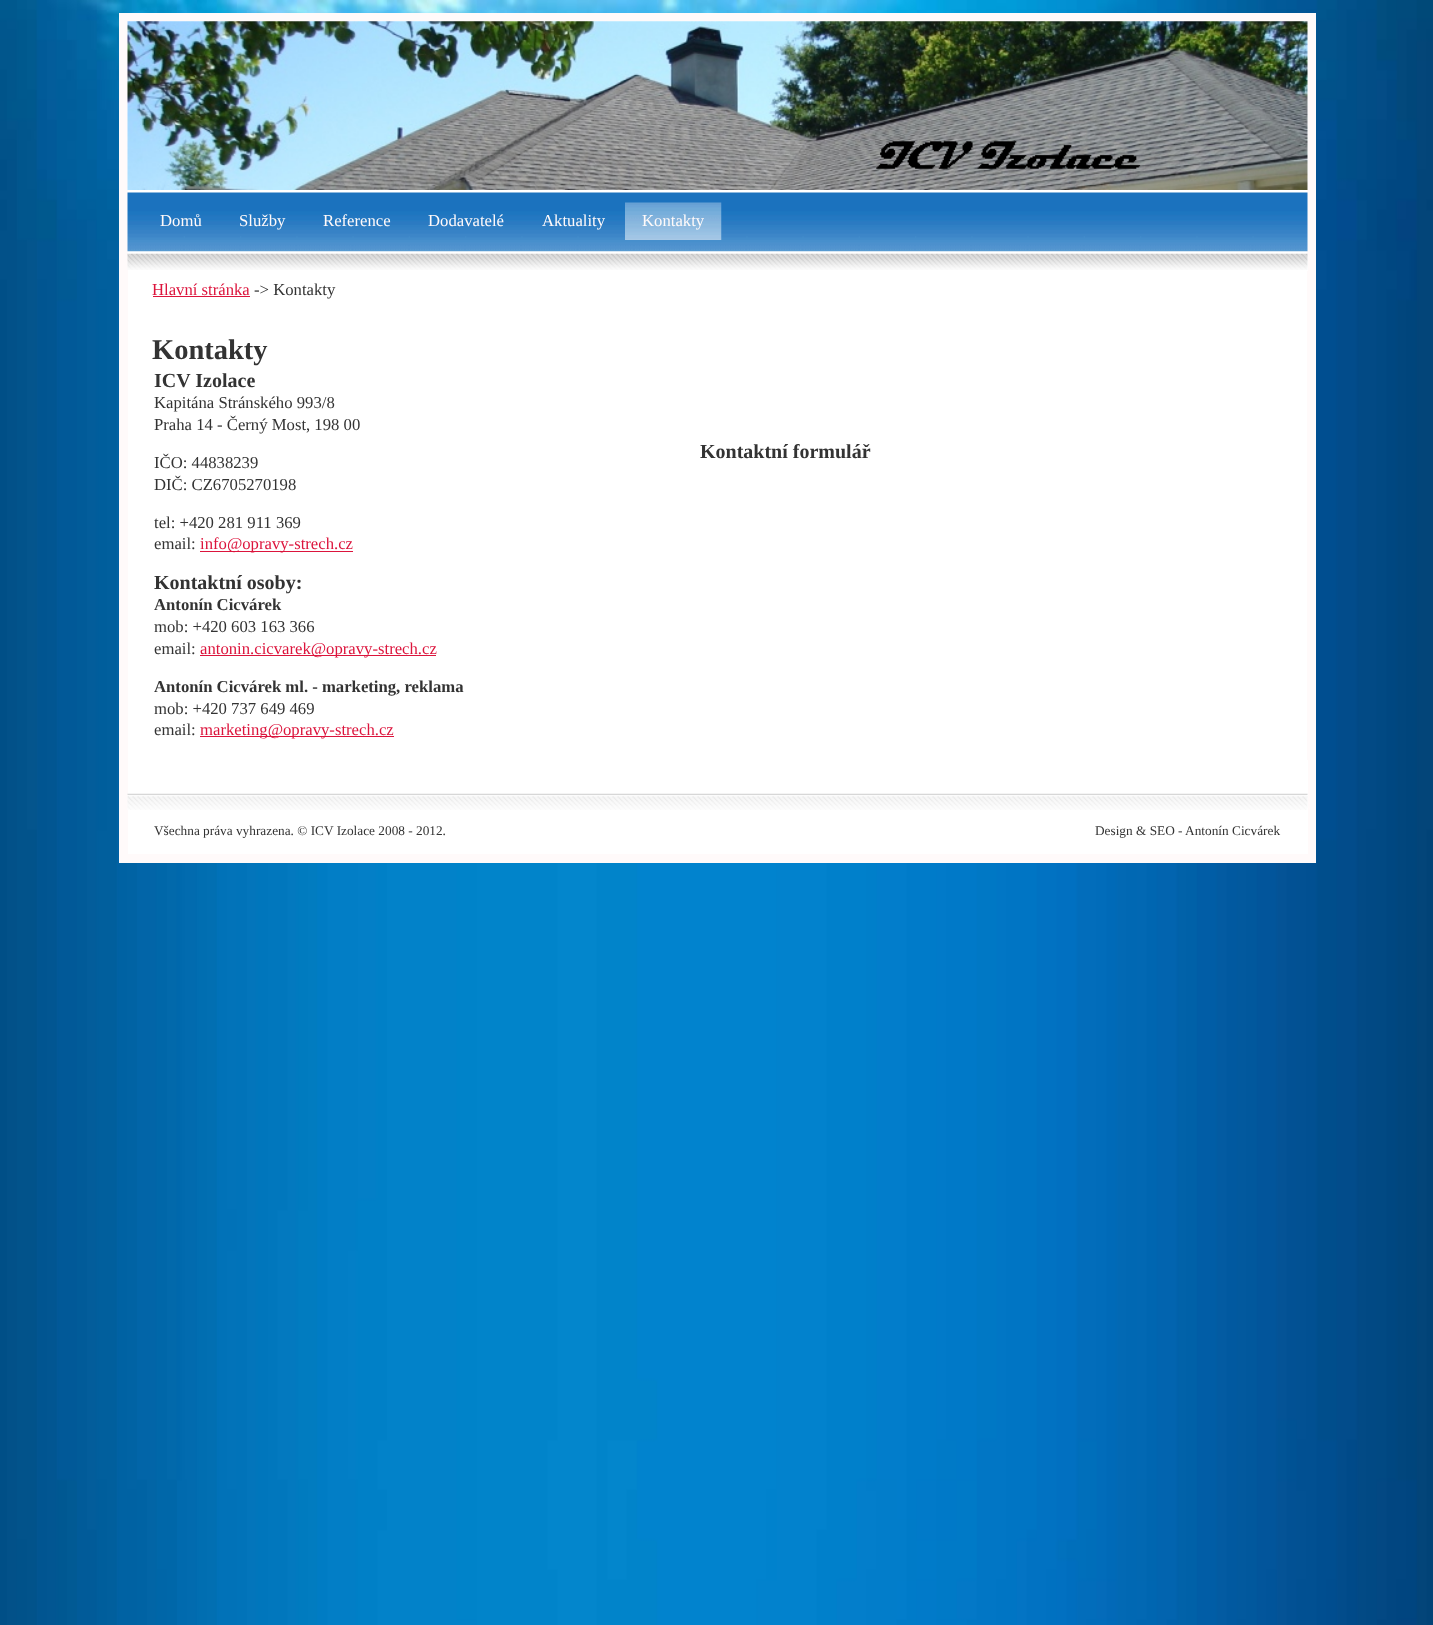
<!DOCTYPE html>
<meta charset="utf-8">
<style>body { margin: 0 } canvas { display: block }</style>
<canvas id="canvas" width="1433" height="1625"></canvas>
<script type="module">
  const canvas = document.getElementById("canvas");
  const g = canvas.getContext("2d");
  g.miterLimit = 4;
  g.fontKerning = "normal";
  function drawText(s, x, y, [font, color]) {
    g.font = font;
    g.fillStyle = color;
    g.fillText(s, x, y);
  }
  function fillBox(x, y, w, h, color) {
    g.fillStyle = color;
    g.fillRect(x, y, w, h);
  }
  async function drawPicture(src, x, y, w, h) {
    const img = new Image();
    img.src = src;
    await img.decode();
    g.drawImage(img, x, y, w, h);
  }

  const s1 = ["16.7px Liberation Serif", "#FFFAFA"];
  const s2 = ["16.7px Liberation Serif", "#DC143C"];
  const s3 = ["16.7px Liberation Serif", "#333333"];
  const s4 = ["bold 28.5px Liberation Serif", "#333333"];
  const s5 = ["bold 20px Liberation Serif", "#333333"];
  const s6 = ["bold 16.7px Liberation Serif", "#333333"];
  const s7 = ["13.3px Liberation Serif", "#333333"];

  fillBox(0, 0, 1433, 1625, "#FFFFFF");
  await drawPicture("pic1.png", 0, 0, 1433, 1625);
  fillBox(128, 190, 1179, 570, "#FFFFFF");
  g.strokeStyle = "#FFFAFA";
  g.lineWidth = 9;
  g.strokeRect(123.5, 17.5, 1188, 841);
  fillBox(128, 21, 1180, 169, "#FFFFFF");
  await drawPicture("pic2.png", 127, 21, 1181, 169);
  await drawPicture("pic3.png", 127, 192, 1181, 60);
  drawText("Domů", 160, 226, s1);
  drawText("Služby", 239, 226, s1);
  drawText("Reference", 323, 226, s1);
  drawText("Dodavatelé", 428, 226, s1);
  drawText("Aktuality", 542, 226, s1);
  await drawPicture("pic4.png", 625, 202, 97, 38);
  drawText("Kontakty", 642, 226, s1);
  fillBox(1307, 254, 1, 17, "#FFFFFF");
  await drawPicture("pic5.png", 127, 253, 1181, 17);
  drawText("Hlavní stránka", 152, 295, s2);
  fillBox(153, 296, 97, 1, "#DC143C");
  drawText("-> Kontakty", 254, 295, s3);
  drawText("Kontakty", 152, 359, s4);
  drawText("ICV Izolace", 154, 387, s5);
  drawText("Kapitána Stránského 993/8", 154, 408, s3);
  drawText("Praha 14 - Černý Most, 198 00", 154, 430, s3);
  drawText("IČO: 44838239", 154, 468, s3);
  drawText("DIČ: CZ6705270198", 154, 490, s3);
  drawText("tel: +420 281 911 369", 154, 528, s3);
  drawText("email:", 154, 549, s3);
  fillBox(200, 551, 153, 1, "#DC143C");
  drawText("info@opravy-strech.cz", 200, 549, s2);
  drawText("Kontaktní osoby:", 154, 589, s5);
  drawText("Antonín Cicvárek", 154, 610, s6);
  drawText("mob: +420 603 163 366", 154, 632, s3);
  drawText("email:", 154, 654, s3);
  fillBox(200, 655, 236, 1, "#DC143C");
  drawText("antonin.cicvarek@opravy-strech.cz", 200, 654, s2);
  drawText("Antonín Cicvárek ml. - marketing, reklama", 154, 692, s6);
  drawText("mob: +420 737 649 469", 154, 714, s3);
  drawText("email:", 154, 735, s3);
  fillBox(200, 736, 194, 1, "#DC143C");
  drawText("marketing@opravy-strech.cz", 200, 735, s2);
  drawText("Kontaktní formulář", 700, 458, s5);
  fillBox(128, 760, 1180, 94, "#FFFFFF");
  await drawPicture("pic6.png", 127, 793, 1181, 17);
  drawText("Všechna práva vyhrazena. © ICV Izolace 2008 - 2012.", 154, 835, s7);
  drawText("Design & SEO - Antonín Cicvárek", 1095, 835, s7);
</script>
